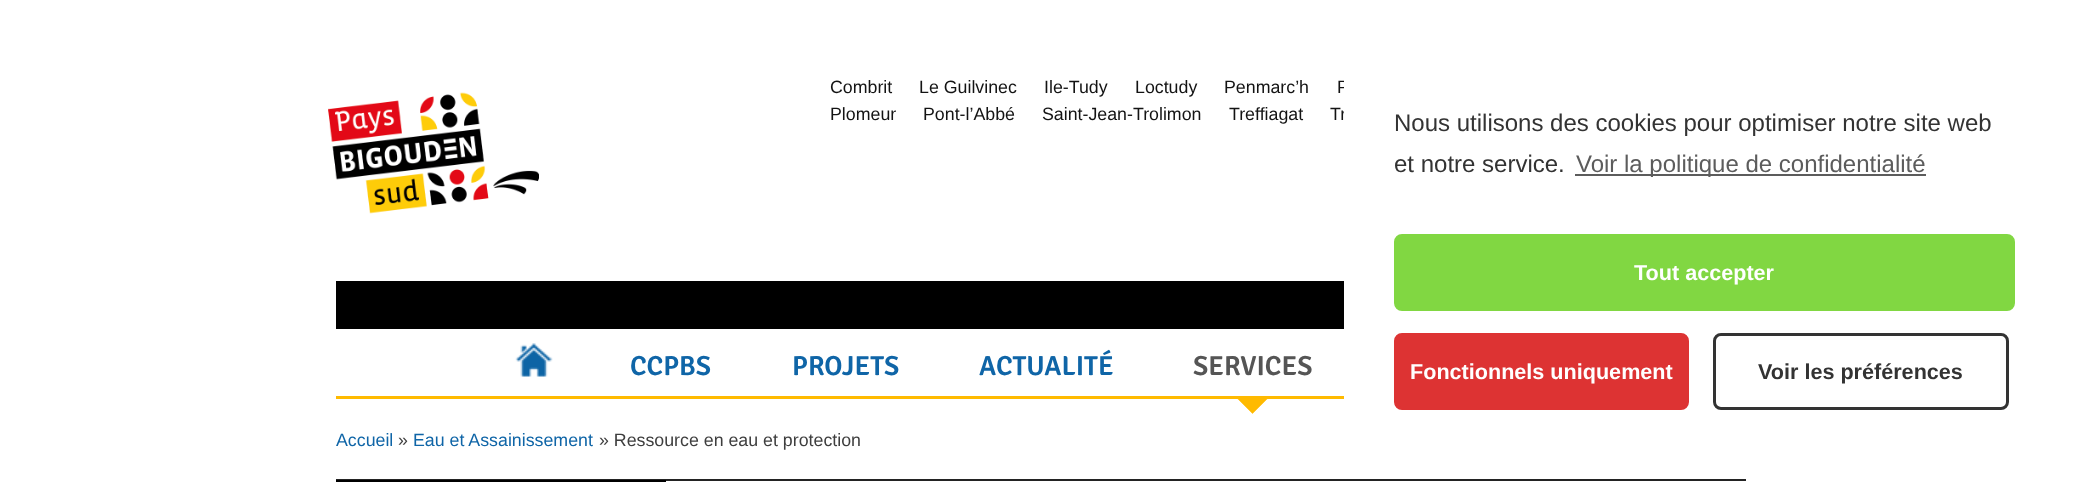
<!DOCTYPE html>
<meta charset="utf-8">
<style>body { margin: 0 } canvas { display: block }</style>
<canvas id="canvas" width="2081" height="482"></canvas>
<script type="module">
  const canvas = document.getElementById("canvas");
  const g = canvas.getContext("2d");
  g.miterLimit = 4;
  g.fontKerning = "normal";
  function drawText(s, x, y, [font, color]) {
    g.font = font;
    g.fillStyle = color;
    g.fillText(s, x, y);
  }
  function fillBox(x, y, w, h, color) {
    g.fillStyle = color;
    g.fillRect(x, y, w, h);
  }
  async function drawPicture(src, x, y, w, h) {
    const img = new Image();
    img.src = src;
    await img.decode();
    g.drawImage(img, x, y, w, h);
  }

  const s1 = ["17.8px Liberation Sans", "#131313"];
  const s2 = ["600 27.5px Signika", "#0F65A7"];
  const s3 = ["600 27.5px Signika", "#555555"];
  const s4 = ["24px Liberation Sans", "#333333"];
  const s5 = ["24px Liberation Sans", "#5C5C5C"];
  const s6 = ["bold 21.6px Liberation Sans", "#FFFFFF"];
  const s7 = ["bold 21.6px Liberation Sans", "#333333"];
  const s8 = ["17.8px Liberation Sans", "#0F65A7"];
  const s9 = ["17.8px Liberation Sans", "#3E3E3E"];

  fillBox(0, 0, 2081, 482, "#FFFFFF");
  await drawPicture("pic1.png", 328, 92, 211, 122);
  drawText("Combrit", 830, 93, s1);
  drawText("Le Guilvinec", 919, 93, s1);
  drawText("Ile-Tudy", 1044, 93, s1);
  drawText("Loctudy", 1135, 93, s1);
  drawText("Penmarc’h", 1224, 93, s1);
  drawText("P", 1337, 93, s1);
  drawText("Plomeur", 830, 120, s1);
  drawText("Pont-l’Abbé", 923, 120, s1);
  drawText("Saint-Jean-Trolimon", 1042, 120, s1);
  drawText("Treffiagat", 1229, 120, s1);
  drawText("Tr", 1330, 120, s1);
  fillBox(336, 281, 1008, 48, "#000000");
  fillBox(336, 396, 1008, 3, "#FFBA00");
  await drawPicture("pic2.png", 515, 343, 38, 34);
  drawText("CCPBS", 630, 375, s2);
  drawText("PROJETS", 792, 375, s2);
  drawText("ACTUALITÉ", 979, 375, s2);
  drawText("SERVICES", 1193, 375, s3);
  g.fillStyle = "#FFBA00";
  g.beginPath();
  g.moveTo(1237.5, 399);
  g.lineTo(1267.5, 399);
  g.lineTo(1252.5, 414);
  g.closePath();
  g.fill();
  g.fillStyle = "#FFFFFF";
  g.beginPath();
  g.moveTo(1267.5, 399);
  g.lineTo(1267.5, 414);
  g.lineTo(1252.5, 414);
  g.closePath();
  g.fill();
  g.beginPath();
  g.moveTo(1237.5, 414);
  g.lineTo(1237.5, 399);
  g.lineTo(1252.5, 414);
  g.closePath();
  g.fill();
  fillBox(1344, 80, 4, 33, "#FFFFFF");
  drawText("Nous utilisons des cookies pour optimiser notre site web", 1394, 131, s4);
  drawText("et notre service.", 1394, 172, s4);
  fillBox(1575, 174, 351, 2, "#5C5C5C");
  drawText("Voir la politique de confidentialité", 1576, 172, s5);
  g.fillStyle = "#81D742";
  g.beginPath();
  g.roundRect(1395.5, 235.5, 618, 74, 6.5);
  g.fill();
  g.strokeStyle = "#81D742";
  g.lineWidth = 3;
  g.stroke();
  drawText("Tout accepter", 1634, 280, s6);
  g.fillStyle = "#DD3333";
  g.beginPath();
  g.roundRect(1395.5, 334.5, 292, 74, 6.5);
  g.fill();
  g.strokeStyle = "#DD3333";
  g.stroke();
  drawText("Fonctionnels uniquement", 1410, 379, s6);
  g.beginPath();
  g.roundRect(1714.5, 334.5, 293, 74, 6.5);
  g.strokeStyle = "#333333";
  g.stroke();
  drawText("Voir les préférences", 1758, 379, s7);
  fillBox(336, 479, 1410, 2, "#232323");
  drawText("Accueil", 336, 446, s8);
  drawText("»", 398, 446, s9);
  drawText("Eau et Assainissement", 413, 446, s8);
  drawText("» Ressource en eau et protection", 599, 446, s9);
  fillBox(336, 480, 330, 2, "#000000");
</script>
